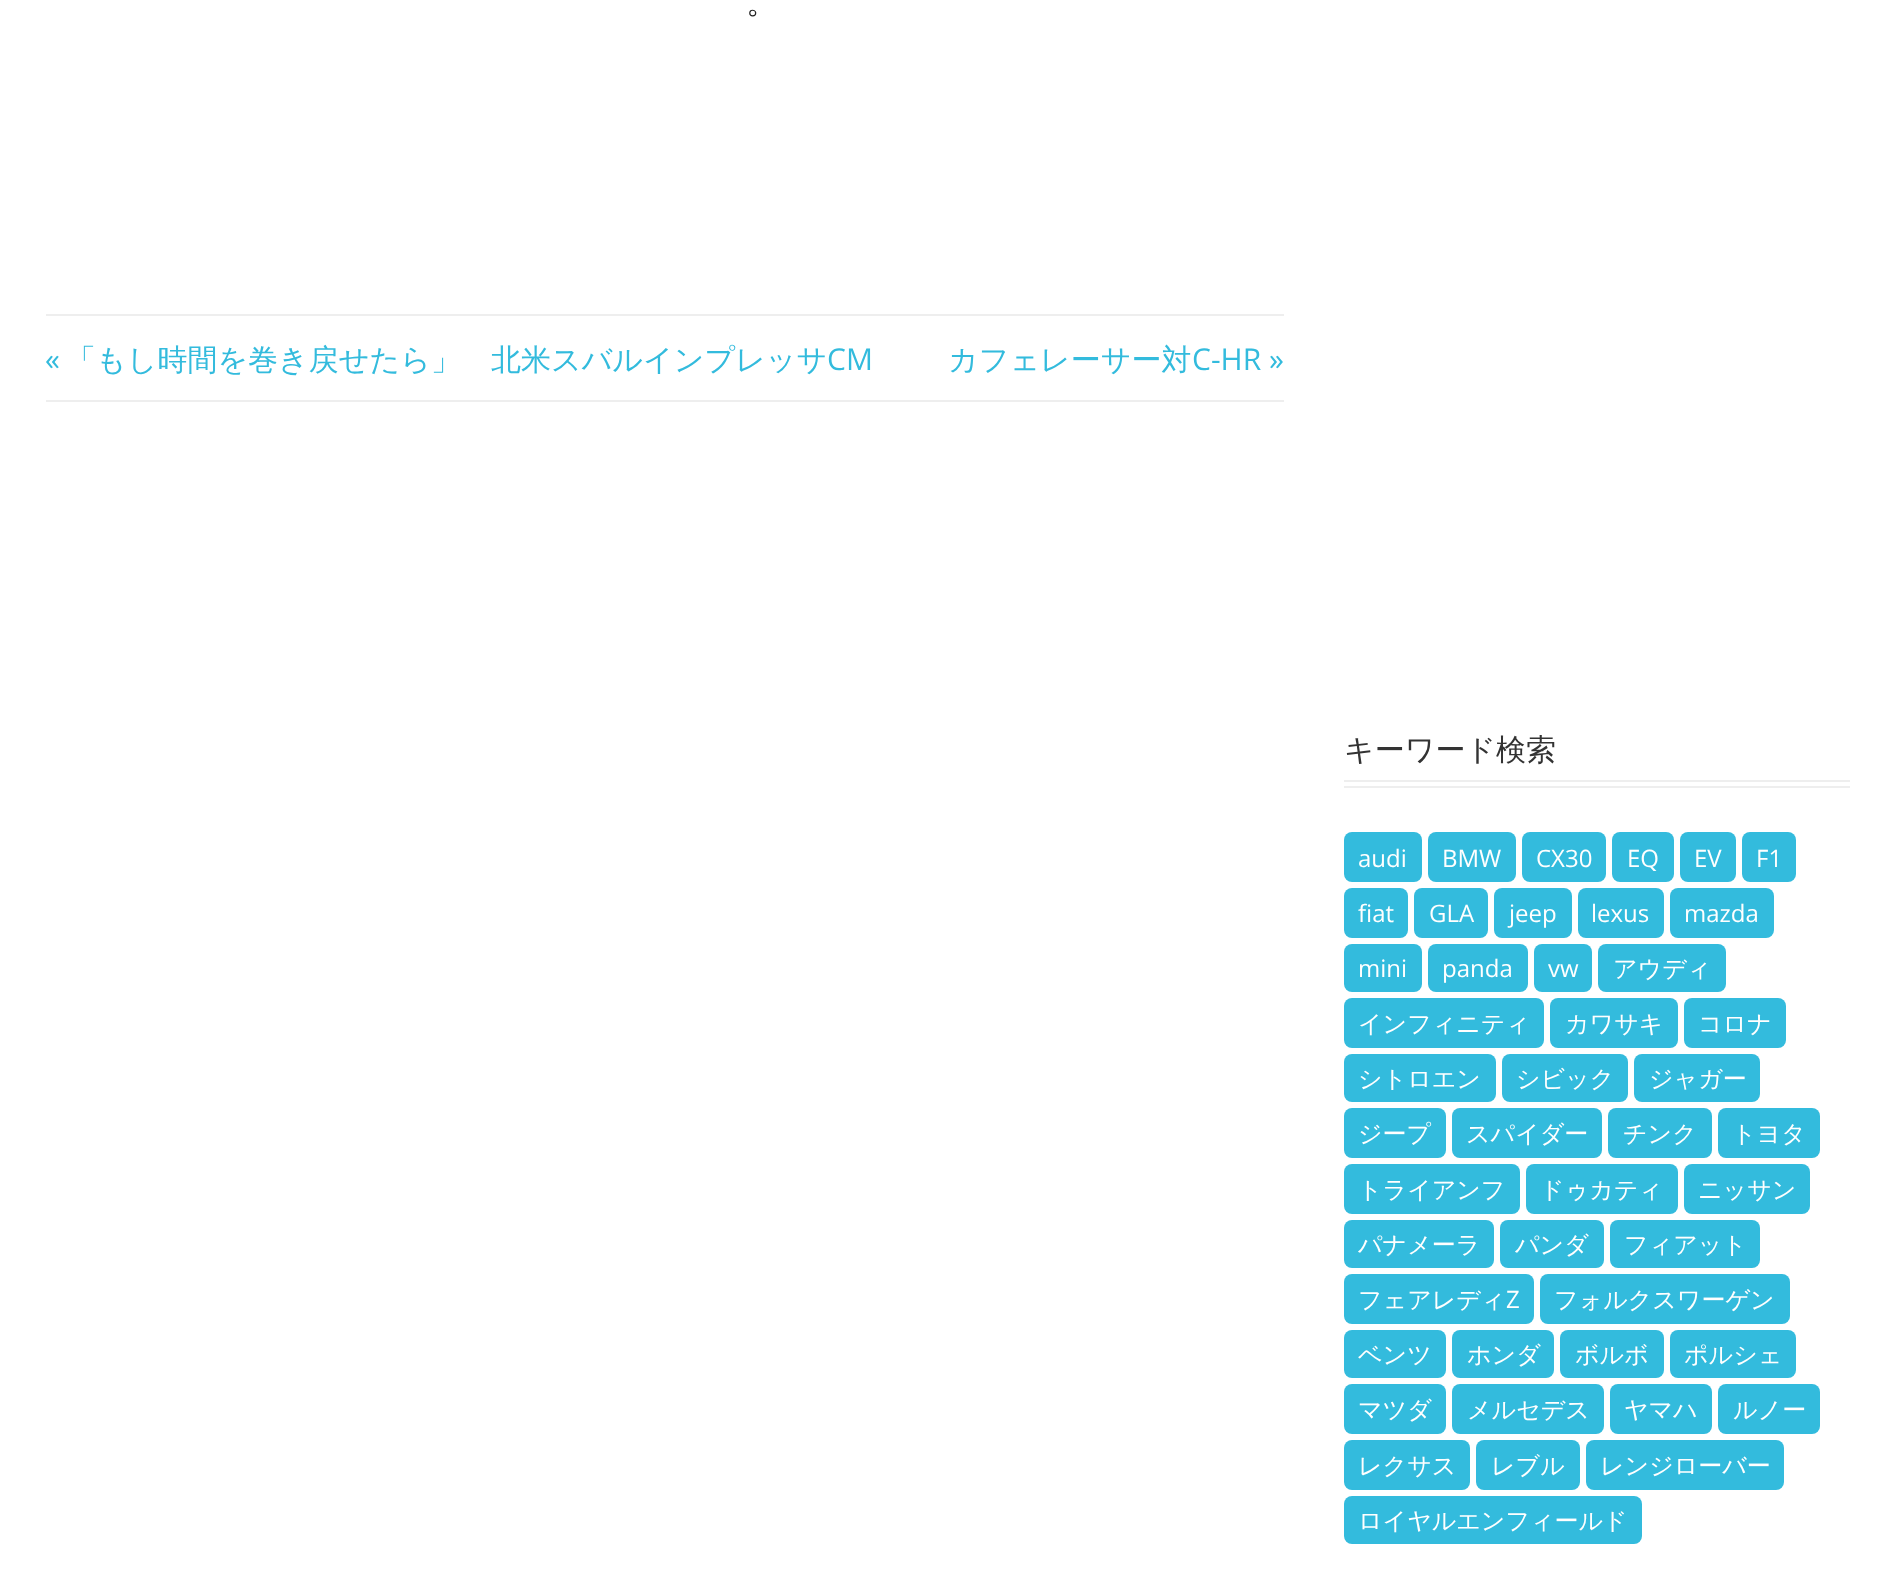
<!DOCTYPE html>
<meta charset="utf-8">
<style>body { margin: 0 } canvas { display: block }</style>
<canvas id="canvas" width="1893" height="1595"></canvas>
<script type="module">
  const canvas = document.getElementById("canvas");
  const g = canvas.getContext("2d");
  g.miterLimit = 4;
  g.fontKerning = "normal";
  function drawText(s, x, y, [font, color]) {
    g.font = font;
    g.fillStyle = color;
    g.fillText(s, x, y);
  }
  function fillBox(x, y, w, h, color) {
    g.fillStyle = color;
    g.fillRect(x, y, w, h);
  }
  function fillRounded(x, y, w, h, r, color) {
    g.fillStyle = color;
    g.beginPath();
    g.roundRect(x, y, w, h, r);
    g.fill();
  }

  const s1 = ["500 32px WenQuanYi Zen Hei", "#222222"];
  const s2 = ["30px Open Sans", "#33BBDD"];
  const s3 = ["500 30px WenQuanYi Zen Hei", "#33BBDD"];
  const s4 = ["500 30px WenQuanYi Zen Hei", "#333333"];
  const s5 = ["24px Open Sans", "#FFFFFF"];
  const s6 = ["500 24px WenQuanYi Zen Hei", "#FFFFFF"];

  fillBox(0, 0, 1893, 1595, "#FFFFFF");
  drawText("。", 746, 13, s1);
  fillBox(46, 314, 1238, 2, "#EEEEEE");
  fillBox(46, 400, 1238, 2, "#EEEEEE");
  drawText("«", 45, 370, s2);
  drawText("「もし時間を巻き戻せたら」　北米スバルインプレッサ", 66, 370, s3);
  drawText("CM", 827, 370, s2);
  drawText("カフェレーサー対", 948, 370, s3);
  drawText("C-HR »", 1192, 370, s2);
  fillBox(1344, 786, 506, 2, "#EEEEEE");
  fillBox(1344, 780, 506, 2, "#EEEEEE");
  drawText("キーワード検索", 1344, 760, s4);
  fillRounded(1344, 832, 78, 50, 8, "#33BBDD");
  drawText("audi", 1358, 867, s5);
  fillRounded(1428, 832, 88, 50, 8, "#33BBDD");
  drawText("BMW", 1442, 867, s5);
  fillRounded(1522, 832, 84, 50, 8, "#33BBDD");
  drawText("CX30", 1536, 867, s5);
  fillRounded(1612, 832, 62, 50, 8, "#33BBDD");
  drawText("EQ", 1627, 867, s5);
  fillRounded(1680, 832, 56, 50, 8, "#33BBDD");
  drawText("EV", 1694, 867, s5);
  fillRounded(1742, 832, 54, 50, 8, "#33BBDD");
  drawText("F1", 1756, 867, s5);
  fillRounded(1344, 888, 64, 50, 8, "#33BBDD");
  drawText("fiat", 1358, 922, s5);
  fillRounded(1414, 888, 74, 50, 8, "#33BBDD");
  drawText("GLA", 1429, 922, s5);
  fillRounded(1494, 888, 78, 50, 8, "#33BBDD");
  drawText("jeep", 1509, 922, s5);
  fillRounded(1578, 888, 86, 50, 8, "#33BBDD");
  drawText("lexus", 1591, 922, s5);
  fillRounded(1670, 888, 104, 50, 8, "#33BBDD");
  drawText("mazda", 1684, 922, s5);
  fillRounded(1344, 944, 78, 48, 8, "#33BBDD");
  drawText("mini", 1358, 977, s5);
  fillRounded(1428, 944, 100, 48, 8, "#33BBDD");
  drawText("panda", 1442, 977, s5);
  fillRounded(1534, 944, 58, 48, 8, "#33BBDD");
  drawText("vw", 1548, 977, s5);
  fillRounded(1598, 944, 128, 48, 8, "#33BBDD");
  drawText("アウディ", 1613, 977, s6);
  fillRounded(1344, 998, 200, 50, 8, "#33BBDD");
  drawText("インフィニティ", 1358, 1032, s6);
  fillRounded(1550, 998, 128, 50, 8, "#33BBDD");
  drawText("カワサキ", 1565, 1032, s6);
  fillRounded(1684, 998, 102, 50, 8, "#33BBDD");
  drawText("コロナ", 1698, 1032, s6);
  fillRounded(1344, 1054, 152, 48, 8, "#33BBDD");
  drawText("シトロエン", 1358, 1087, s6);
  fillRounded(1502, 1054, 126, 48, 8, "#33BBDD");
  drawText("シビック", 1516, 1087, s6);
  fillRounded(1634, 1054, 126, 48, 8, "#33BBDD");
  drawText("ジャガー", 1649, 1087, s6);
  fillRounded(1344, 1108, 102, 50, 8, "#33BBDD");
  drawText("ジープ", 1358, 1142, s6);
  fillRounded(1452, 1108, 150, 50, 8, "#33BBDD");
  drawText("スパイダー", 1466, 1142, s6);
  fillRounded(1608, 1108, 104, 50, 8, "#33BBDD");
  drawText("チンク", 1623, 1142, s6);
  fillRounded(1718, 1108, 102, 50, 8, "#33BBDD");
  drawText("トヨタ", 1732, 1142, s6);
  fillRounded(1344, 1164, 176, 50, 8, "#33BBDD");
  drawText("トライアンフ", 1358, 1198, s6);
  fillRounded(1526, 1164, 152, 50, 8, "#33BBDD");
  drawText("ドゥカティ", 1540, 1198, s6);
  fillRounded(1684, 1164, 126, 50, 8, "#33BBDD");
  drawText("ニッサン", 1698, 1198, s6);
  fillRounded(1344, 1220, 150, 48, 8, "#33BBDD");
  drawText("パナメーラ", 1358, 1253, s6);
  fillRounded(1500, 1220, 104, 48, 8, "#33BBDD");
  drawText("パンダ", 1515, 1253, s6);
  fillRounded(1610, 1220, 150, 48, 8, "#33BBDD");
  drawText("フィアット", 1624, 1253, s6);
  fillRounded(1344, 1274, 190, 50, 8, "#33BBDD");
  drawText("フェアレディ", 1358, 1308, s6);
  drawText("Z", 1506, 1308, s5);
  fillRounded(1540, 1274, 250, 50, 8, "#33BBDD");
  drawText("フォルクスワーゲン", 1554, 1308, s6);
  fillRounded(1344, 1330, 102, 48, 8, "#33BBDD");
  drawText("ベンツ", 1358, 1363, s6);
  fillRounded(1452, 1330, 102, 48, 8, "#33BBDD");
  drawText("ホンダ", 1467, 1363, s6);
  fillRounded(1560, 1330, 104, 48, 8, "#33BBDD");
  drawText("ボルボ", 1575, 1363, s6);
  fillRounded(1670, 1330, 126, 48, 8, "#33BBDD");
  drawText("ポルシェ", 1684, 1363, s6);
  fillRounded(1344, 1384, 102, 50, 8, "#33BBDD");
  drawText("マツダ", 1358, 1418, s6);
  fillRounded(1452, 1384, 152, 50, 8, "#33BBDD");
  drawText("メルセデス", 1467, 1418, s6);
  fillRounded(1610, 1384, 102, 50, 8, "#33BBDD");
  drawText("ヤマハ", 1624, 1418, s6);
  fillRounded(1718, 1384, 102, 50, 8, "#33BBDD");
  drawText("ルノー", 1733, 1418, s6);
  fillRounded(1344, 1440, 126, 50, 8, "#33BBDD");
  drawText("レクサス", 1358, 1474, s6);
  fillRounded(1476, 1440, 104, 50, 8, "#33BBDD");
  drawText("レブル", 1491, 1474, s6);
  fillRounded(1586, 1440, 198, 50, 8, "#33BBDD");
  drawText("レンジローバー", 1600, 1474, s6);
  fillRounded(1344, 1496, 298, 48, 8, "#33BBDD");
  drawText("ロイヤルエンフィールド", 1358, 1529, s6);
</script>
